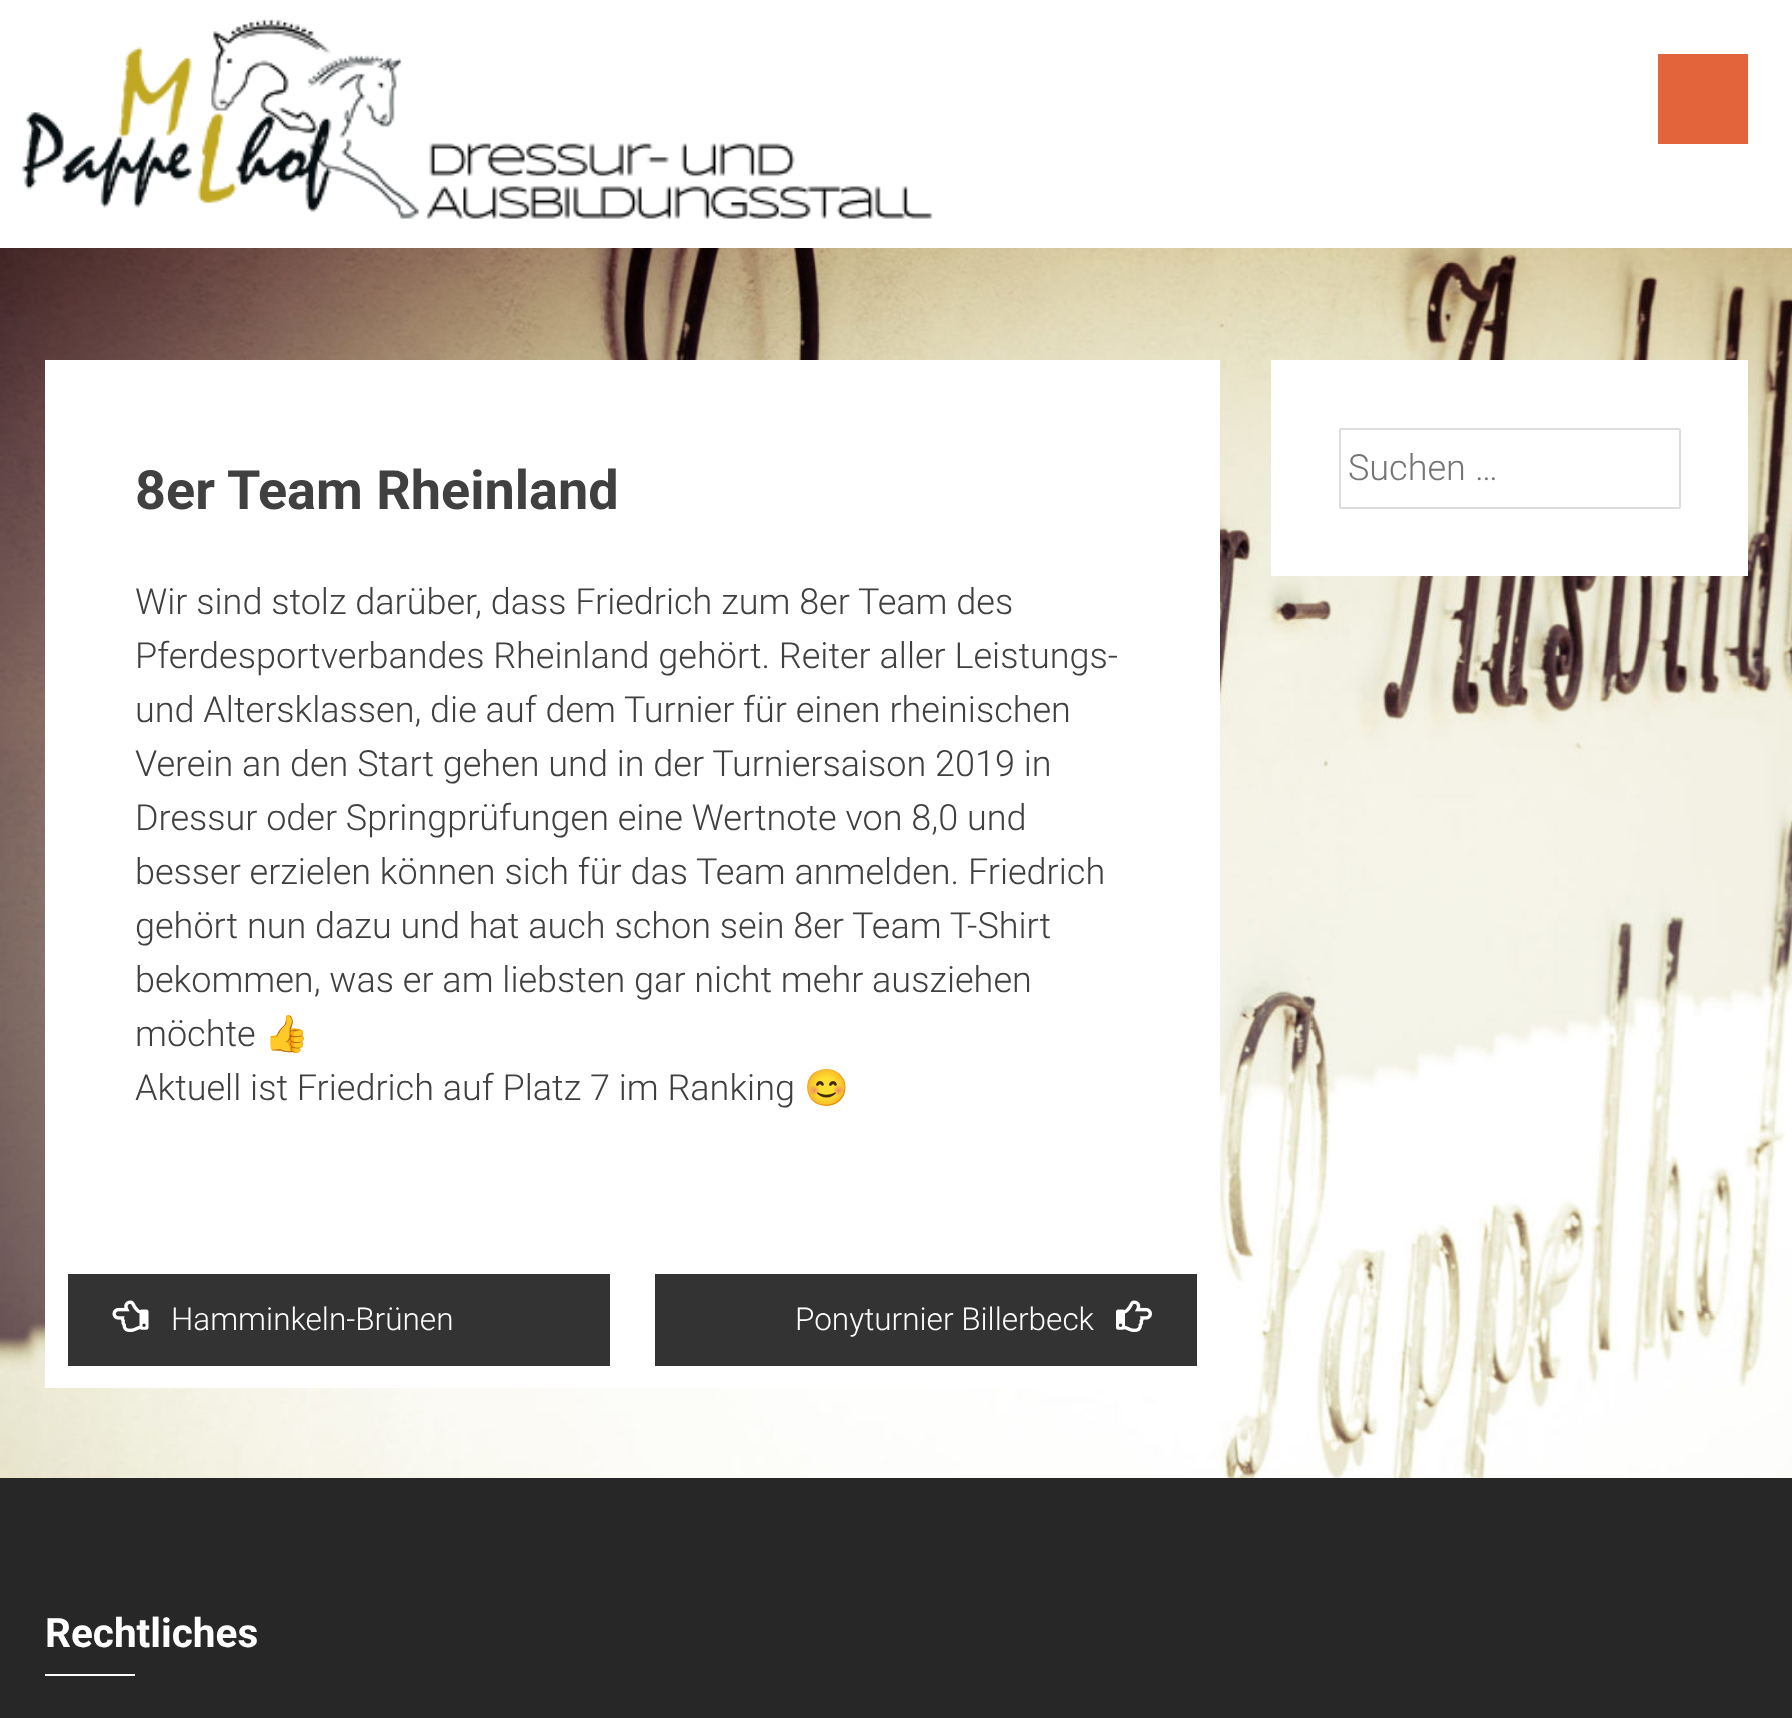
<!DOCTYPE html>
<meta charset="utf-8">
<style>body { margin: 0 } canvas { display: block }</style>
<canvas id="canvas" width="1792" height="1718"></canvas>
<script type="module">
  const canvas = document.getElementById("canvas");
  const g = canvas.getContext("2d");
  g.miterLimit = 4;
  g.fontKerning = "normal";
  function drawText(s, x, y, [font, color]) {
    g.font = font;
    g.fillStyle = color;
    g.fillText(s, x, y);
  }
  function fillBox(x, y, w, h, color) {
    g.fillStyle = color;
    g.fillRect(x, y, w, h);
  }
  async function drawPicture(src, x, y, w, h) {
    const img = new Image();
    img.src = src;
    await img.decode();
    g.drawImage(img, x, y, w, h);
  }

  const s1 = ["bold 54px Roboto", "#404040"];
  const s2 = ["300 36px Roboto", "#404040"];
  const s3 = ["36px Noto Color Emoji", "#404040"];
  const s4 = ["300 31.5px Roboto", "#FFFFFF"];
  const s5 = ["300 36px Roboto", "#757575"];
  const s6 = ["bold 40.5px Roboto", "#FFFFFF"];

  fillBox(0, 0, 1792, 1718, "#FFFFFF");
  await drawPicture("pic1.png", 0, 248, 1792, 1230);
  await drawPicture("pic2.png", 22, 19, 911, 200);
  fillBox(1658, 54, 90, 90, "#E3633B");
  fillBox(45, 360, 1175, 891, "#FFFFFF");
  drawText("8er Team Rheinland", 135, 509, s1);
  drawText("Wir sind stolz darüber, dass Friedrich zum 8er Team des", 135, 614, s2);
  drawText("Pferdesportverbandes Rheinland gehört. Reiter aller Leistungs-", 135, 668, s2);
  drawText("und Altersklassen, die auf dem Turnier für einen rheinischen", 135, 722, s2);
  drawText("Verein an den Start gehen und in der Turniersaison 2019 in", 135, 776, s2);
  drawText("Dressur oder Springprüfungen eine Wertnote von 8,0 und", 135, 830, s2);
  drawText("besser erzielen können sich für das Team anmelden. Friedrich", 135, 884, s2);
  drawText("gehört nun dazu und hat auch schon sein 8er Team T-Shirt", 135, 938, s2);
  drawText("bekommen, was er am liebsten gar nicht mehr ausziehen", 135, 992, s2);
  drawText("möchte", 135, 1046, s2);
  drawText("👍", 264, 1046, s3);
  drawText("Aktuell ist Friedrich auf Platz 7 im Ranking", 135, 1100, s2);
  drawText("😊", 804, 1100, s3);
  fillBox(45, 1251, 1131, 137, "#FFFFFF");
  fillBox(68, 1274, 542, 92, "#333333");
  await drawPicture("pic3.png", 112, 1300, 37, 32);
  drawText("Hamminkeln-Brünen", 171, 1330, s4);
  fillBox(655, 1274, 542, 92, "#333333");
  drawText("Ponyturnier Billerbeck", 795, 1330, s4);
  await drawPicture("pic4.png", 1116, 1300, 36, 32);
  fillBox(1271, 360, 477, 216, "#FFFFFF");
  g.beginPath();
  g.roundRect(1340, 429, 340, 79, 1);
  g.strokeStyle = "#DDDDDD";
  g.lineWidth = 2;
  g.stroke();
  drawText("Suchen …", 1348, 480, s5);
  fillBox(0, 1478, 1792, 240, "#272727");
  drawText("Rechtliches", 45, 1647, s6);
  fillBox(45, 1674, 90, 2, "#FFFFFF");
</script>
